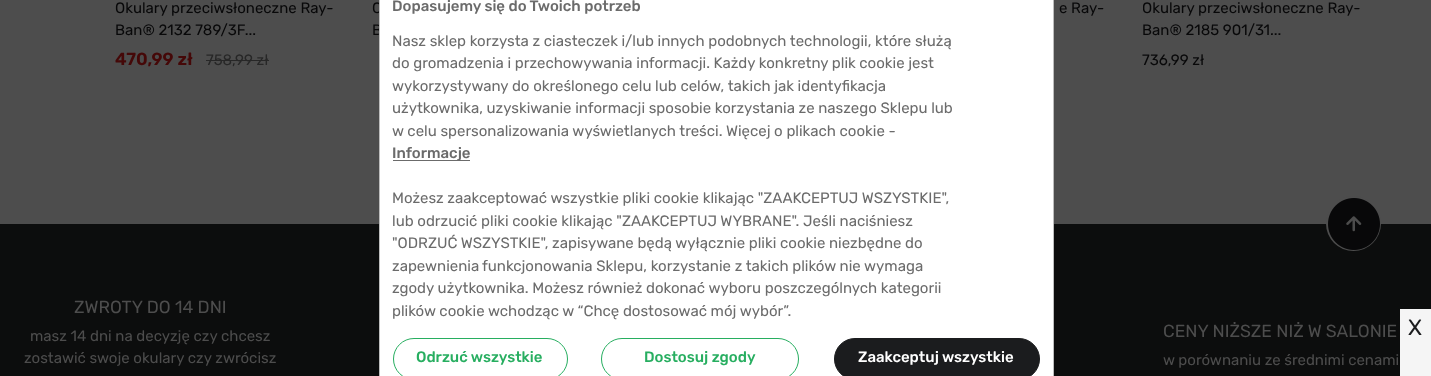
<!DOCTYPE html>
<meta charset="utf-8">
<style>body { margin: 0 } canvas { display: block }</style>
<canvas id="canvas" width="1431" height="376"></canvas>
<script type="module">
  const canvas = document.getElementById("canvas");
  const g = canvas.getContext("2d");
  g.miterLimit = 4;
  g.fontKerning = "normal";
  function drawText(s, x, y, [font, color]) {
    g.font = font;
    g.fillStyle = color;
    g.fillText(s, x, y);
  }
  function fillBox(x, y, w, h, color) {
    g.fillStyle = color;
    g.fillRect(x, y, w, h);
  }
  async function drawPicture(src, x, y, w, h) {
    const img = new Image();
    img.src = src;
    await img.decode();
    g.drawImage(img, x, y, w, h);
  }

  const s1 = ["300 15px Rubik", "#080809"];
  const s2 = ["300 15px 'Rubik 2'", "#6B6B6B"];
  const s3 = ["300 15px Rubik", "#6B6B6B"];
  const s4 = ["300 15px 'Rubik 2'", "#27AE60"];
  const s5 = ["300 15px 'Rubik 2'", "#FFFFFF"];
  const s6 = ["600 17.5px Rubik", "#450808"];
  const s7 = ["300 15px Rubik", "#272727"];
  const s8 = ["300 17.5px Rubik", "#4D4D4D"];
  const s9 = ["300 15px Rubik", "#4D4D4D"];
  const s10 = ["300 22px Rubik", "#1B1C1E"];

  fillBox(0, 0, 1431, 376, "#4D4D4D");
  drawText("O", 372, 13, s1);
  drawText("B", 372, 35, s1);
  fillBox(0, 224, 1431, 152, "#0C0D0D");
  g.fillStyle = "#FFFFFF";
  g.beginPath();
  g.rect(379.5, -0.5, 674, 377);
  g.fill();
  g.strokeStyle = "#BDBDBD";
  g.stroke();
  drawText("Dopasujemy się do Twoich potrzeb", 392, 11, s2);
  drawText("Nasz sklep korzysta z ciasteczek i/lub innych podobnych technologii, które służą", 392, 46, s3);
  drawText("do gromadzenia i przechowywania informacji. Każdy konkretny plik cookie jest", 392, 68, s3);
  drawText("wykorzystywany do określonego celu lub celów, takich jak identyfikacja", 392, 91, s3);
  drawText("użytkownika, uzyskiwanie informacji sposobie korzystania ze naszego Sklepu lub", 392, 113, s3);
  drawText("w celu spersonalizowania wyświetlanych treści. Więcej o plikach cookie -", 392, 136, s3);
  fillBox(393, 160, 77, 1, "#6B6B6B");
  drawText("Informacje", 392, 158, s2);
  drawText("Możesz zaakceptować wszystkie pliki cookie klikając \"ZAAKCEPTUJ WSZYSTKIE\",", 392, 203, s3);
  drawText("lub odrzucić pliki cookie klikając \"ZAAKCEPTUJ WYBRANE\". Jeśli naciśniesz", 392, 226, s3);
  drawText("\"ODRZUĆ WSZYSTKIE\", zapisywane będą wyłącznie pliki cookie niezbędne do", 392, 248, s3);
  drawText("zapewnienia", 392, 271, s3);
  drawText("funkcjonowania Sklepu, korzystanie z takich plików nie wymaga", 482, 271, s3);
  drawText("zgody użytkownika. Możesz również dokonać wyboru poszczególnych kategorii", 392, 293, s3);
  drawText("plików cookie wchodząc w “Chcę dostosować mój wybór”.", 392, 316, s3);
  g.beginPath();
  g.roundRect(393.5, 338.5, 174, 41, 20.5);
  g.strokeStyle = "#27AE60";
  g.stroke();
  drawText("Odrzuć wszystkie", 416, 362, s4);
  g.beginPath();
  g.roundRect(601.5, 338.5, 197, 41, 20.5);
  g.stroke();
  drawText("Dostosuj zgody", 644, 362, s4);
  g.fillStyle = "#1B1C1E";
  g.beginPath();
  g.roundRect(834.5, 338.5, 205, 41, 20.5);
  g.fill();
  g.strokeStyle = "#1B1C1E";
  g.stroke();
  drawText("Zaakceptuj wszystkie", 858, 362, s5);
  drawText("Okulary przeciwsłoneczne Ray-", 115, 13, s1);
  drawText("Ban® 2132 789/3F...", 115, 35, s1);
  drawText("470,99 zł", 115, 65, s6);
  drawText("758,99 zł", 206, 65, s7);
  fillBox(206, 60, 63, 1, "#272727");
  drawText("e Ray-", 1059, 13, s1);
  g.save();
  g.beginPath();
  g.rect(1143, 0, 226, 96);
  g.clip();
  drawText("Okulary przeciwsłoneczne Ray-", 1142, 13, s1);
  g.restore();
  drawText("Ban® 2185 901/31...", 1142, 35, s1);
  drawText("736,99 zł", 1142, 65, s1);
  g.fillStyle = "#4D4D4D";
  g.beginPath();
  g.arc(1353.5, 223.5, 27.5, 0, Math.PI * 2);
  g.fill();
  await drawPicture("pic1.png", 1328, 198, 52, 52);
  drawText("ZWROTY DO 14 DNI", 74, 313, s8);
  drawText("masz 14 dni na decyzję czy chcesz", 30, 341, s9);
  drawText("zostawić swoje okulary czy zwrócisz", 24, 363, s9);
  drawText("CENY NIŻSZE NIŻ W SALONIE", 1163, 337, s8);
  drawText("w porównaniu ze średnimi cenami", 1163, 365, s9);
  fillBox(1400, 309, 31, 67, "#F5F5F5");
  drawText("X", 1408, 335, s10);
</script>
